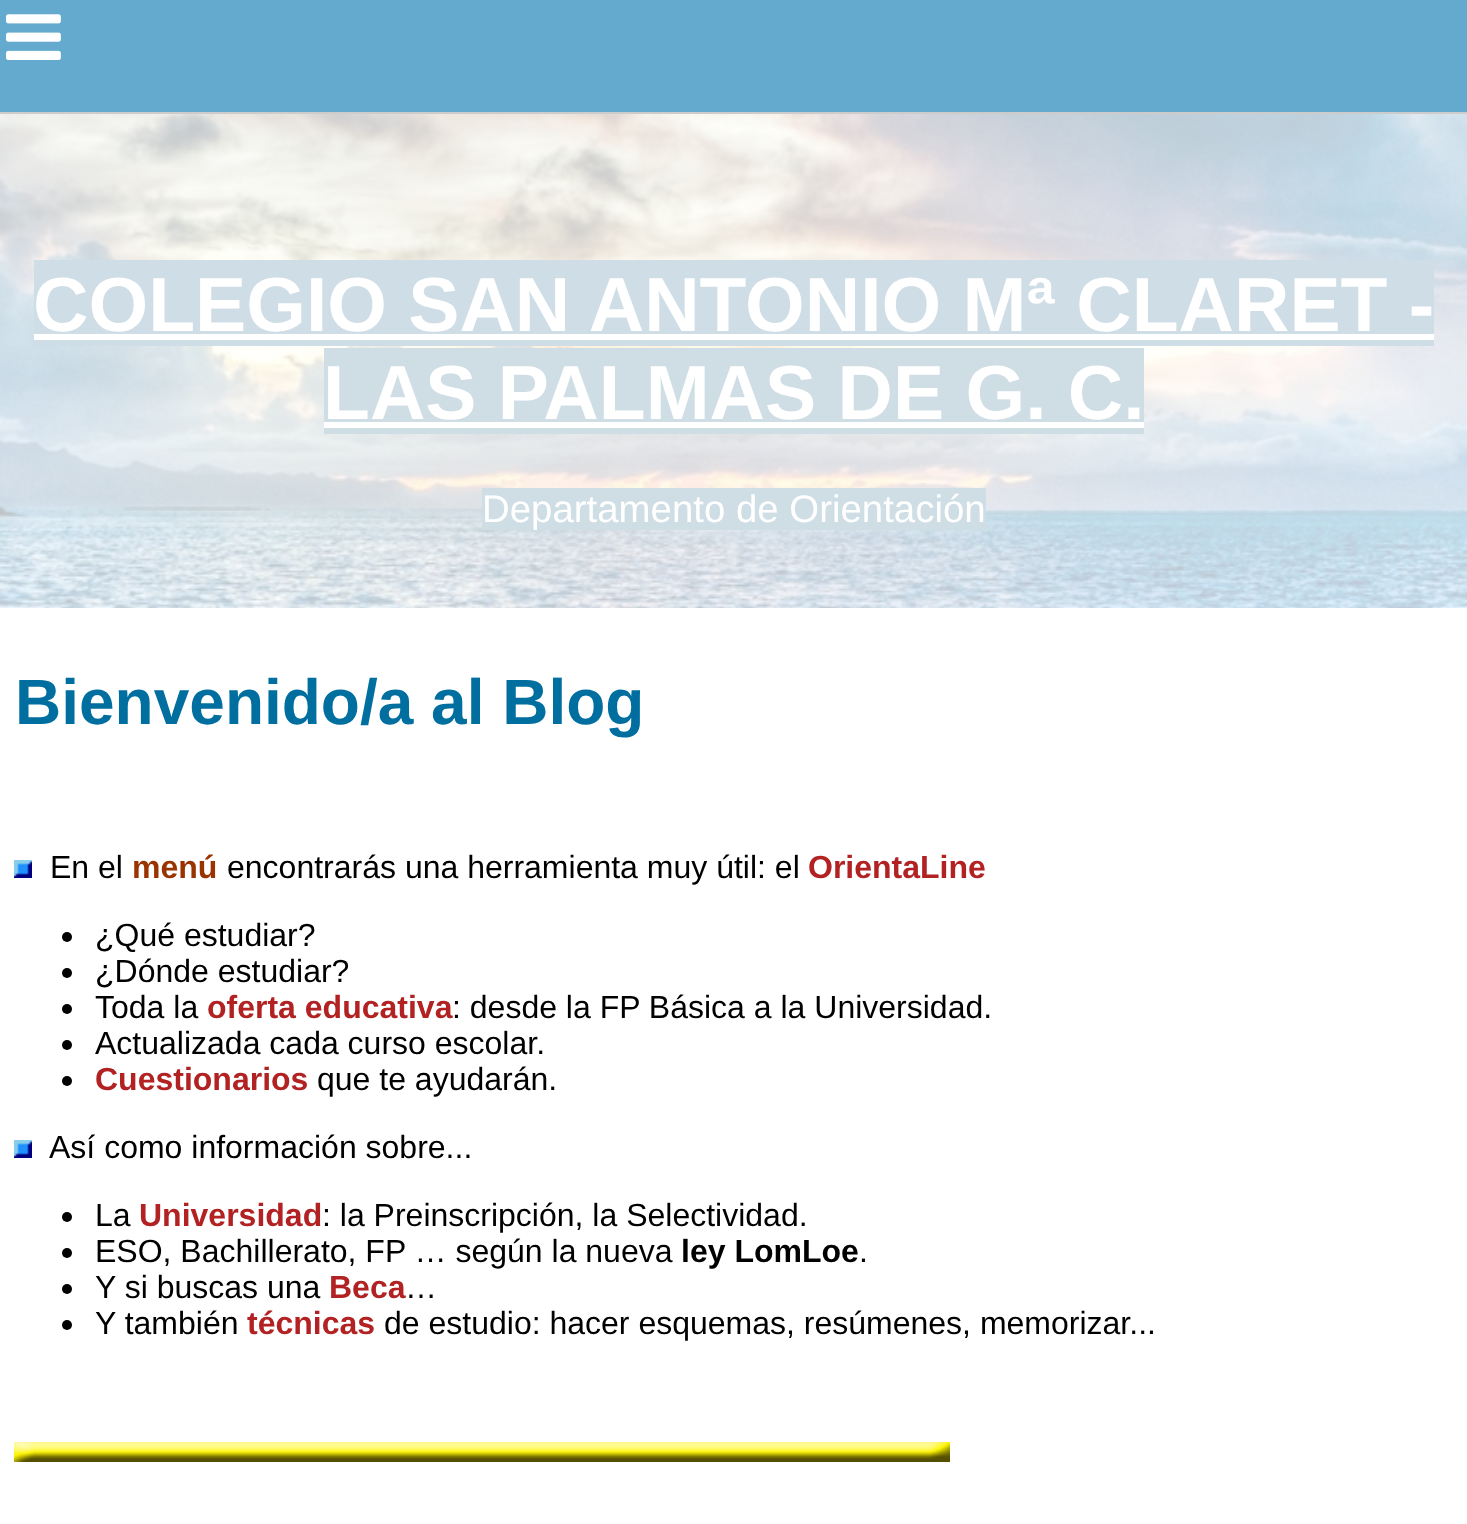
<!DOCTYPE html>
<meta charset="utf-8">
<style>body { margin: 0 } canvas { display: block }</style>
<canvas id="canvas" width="1467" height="1524"></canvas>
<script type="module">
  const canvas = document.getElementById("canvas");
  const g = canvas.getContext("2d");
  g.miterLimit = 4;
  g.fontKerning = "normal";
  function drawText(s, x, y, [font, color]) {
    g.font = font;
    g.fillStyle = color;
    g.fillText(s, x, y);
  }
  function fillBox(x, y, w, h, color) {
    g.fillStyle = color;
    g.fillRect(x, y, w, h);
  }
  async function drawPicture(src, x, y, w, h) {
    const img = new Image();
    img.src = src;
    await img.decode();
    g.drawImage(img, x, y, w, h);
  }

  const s1 = ["bold 76.75px Liberation Sans", "#FFFFFF"];
  const s2 = ["38.4px Liberation Sans", "#FFFFFF"];
  const s3 = ["bold 64px Liberation Sans", "#006FA0"];
  const s4 = ["32px Liberation Sans", "#000000"];
  const s5 = ["bold 32px Liberation Sans", "#993300"];
  const s6 = ["bold 32px Liberation Sans", "#B22222"];
  const s7 = ["bold 32px Liberation Sans", "#000000"];

  fillBox(0, 0, 1467, 1524, "#FFFFFF");
  fillBox(0, 0, 1467, 112, "#63AACE");
  fillBox(0, 112, 1467, 2, "#CCCCCC");
  await drawPicture("pic1.png", 6, 14, 55, 46);
  await drawPicture("pic2.png", 0, 114, 1467, 494);
  fillBox(34, 260, 1400, 86, "#CFDEE6");
  drawText("COLEGIO SAN ANTONIO Mª CLARET -", 33, 331, s1);
  fillBox(34, 334, 1400, 6, "#FFFFFF");
  fillBox(324, 348, 820, 86, "#CFDEE5");
  drawText("LAS PALMAS DE G. C.", 323, 419, s1);
  fillBox(324, 422, 820, 6, "#FFFFFF");
  fillBox(482, 488, 504, 42, "#CFDEE5");
  drawText("Departamento de Orientación", 482, 522, s2);
  drawText("Bienvenido/a al Blog", 15, 724, s3);
  await drawPicture("pic3.png", 14, 860, 18, 18);
  drawText("En el", 50, 878, s4);
  drawText("menú", 132, 878, s5);
  drawText("encontrarás una herramienta muy útil: el", 227, 878, s4);
  drawText("OrientaLine", 808, 878, s6);
  g.fillStyle = "#000000";
  g.beginPath();
  g.arc(67, 937, 5, 0, Math.PI * 2);
  g.fill();
  drawText("¿Qué estudiar?", 95, 946, s4);
  g.beginPath();
  g.arc(67, 973, 5, 0, Math.PI * 2);
  g.fill();
  drawText("¿Dónde estudiar?", 95, 982, s4);
  g.beginPath();
  g.arc(67, 1009, 5, 0, Math.PI * 2);
  g.fill();
  drawText("Toda la", 95, 1018, s4);
  drawText("oferta educativa", 207, 1018, s6);
  drawText(": desde la FP Básica a la Universidad.", 452, 1018, s4);
  g.beginPath();
  g.arc(67, 1045, 5, 0, Math.PI * 2);
  g.fill();
  drawText("Actualizada cada curso escolar.", 95, 1054, s4);
  g.beginPath();
  g.arc(67, 1081, 5, 0, Math.PI * 2);
  g.fill();
  drawText("Cuestionarios", 95, 1090, s6);
  drawText("que te ayudarán.", 317, 1090, s4);
  await drawPicture("pic3.png", 14, 1140, 18, 18);
  drawText("Así como información sobre...", 49, 1158, s4);
  g.beginPath();
  g.arc(67, 1217, 5, 0, Math.PI * 2);
  g.fill();
  drawText("La", 95, 1226, s4);
  drawText("Universidad", 139, 1226, s6);
  drawText(": la Preinscripción, la Selectividad.", 322, 1226, s4);
  g.beginPath();
  g.arc(67, 1253, 5, 0, Math.PI * 2);
  g.fill();
  drawText("ESO, Bachillerato, FP … según la nueva", 95, 1262, s4);
  drawText("ley LomLoe", 681, 1262, s7);
  drawText(".", 859, 1262, s4);
  g.beginPath();
  g.arc(67, 1289, 5, 0, Math.PI * 2);
  g.fill();
  drawText("Y si buscas una", 95, 1298, s4);
  drawText("Beca", 329, 1298, s6);
  drawText("…", 405, 1298, s4);
  g.beginPath();
  g.arc(67, 1325, 5, 0, Math.PI * 2);
  g.fill();
  drawText("Y también", 95, 1334, s4);
  drawText("técnicas", 247, 1334, s6);
  drawText("de estudio: hacer esquemas, resúmenes, memorizar...", 384, 1334, s4);
  await drawPicture("pic4.png", 14, 1442, 936, 20);
</script>
